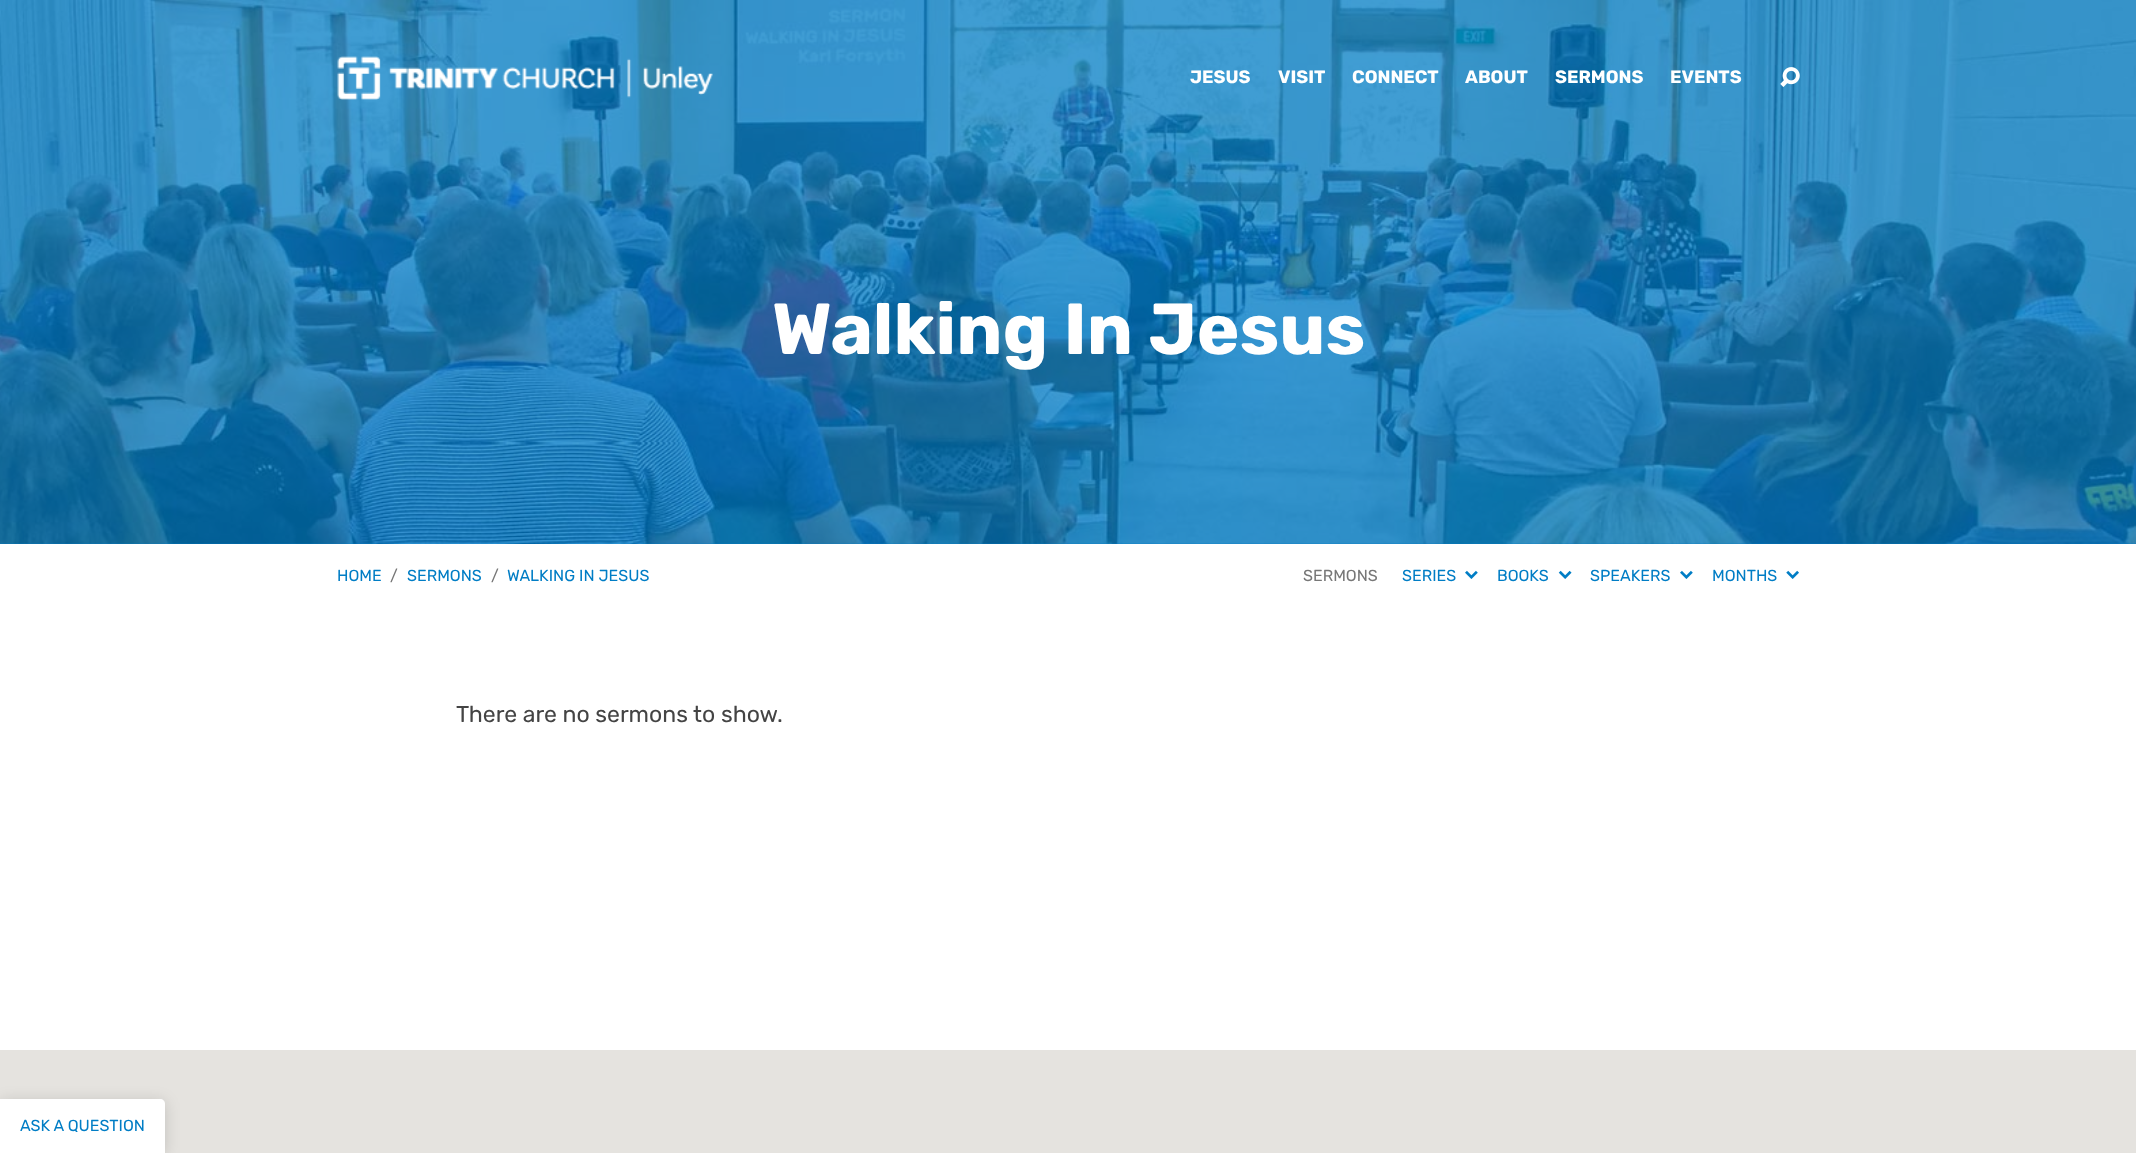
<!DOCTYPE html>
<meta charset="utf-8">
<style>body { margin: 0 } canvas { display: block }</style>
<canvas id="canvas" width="2136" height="1153"></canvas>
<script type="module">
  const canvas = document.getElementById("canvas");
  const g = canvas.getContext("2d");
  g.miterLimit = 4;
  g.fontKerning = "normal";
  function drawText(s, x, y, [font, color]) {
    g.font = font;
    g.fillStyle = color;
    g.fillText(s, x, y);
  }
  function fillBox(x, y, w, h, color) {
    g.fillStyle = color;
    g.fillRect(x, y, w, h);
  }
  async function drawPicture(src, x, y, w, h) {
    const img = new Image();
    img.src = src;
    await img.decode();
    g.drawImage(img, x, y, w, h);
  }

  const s1 = ["bold 18px Rubik", "#FFFFFF"];
  const s2 = ["bold 72px Rubik", "#FFFFFF"];
  const s3 = ["16px Rubik", "#007DC5"];
  const s4 = ["16px Rubik", "#777777"];
  const s5 = ["23px Rubik", "#444444"];

  fillBox(0, 0, 2136, 1153, "#FFFFFF");
  fillBox(0, 0, 2136, 544, "#007DC5");
  await drawPicture("pic3.png", 0, 0, 2136, 544);
  await drawPicture("pic1.png", 337, 56, 376, 44);
  drawText("JESUS", 1190, 83, s1);
  drawText("VISIT", 1278, 83, s1);
  drawText("CONNECT", 1352, 83, s1);
  drawText("ABOUT", 1465, 83, s1);
  drawText("SERMONS", 1555, 83, s1);
  drawText("EVENTS", 1670, 83, s1);
  await drawPicture("pic2.png", 1780, 67, 20, 20);
  drawText("Walking In Jesus", 772, 354, s2);
  drawText("HOME", 337, 581, s3);
  drawText("/", 390, 581, s4);
  drawText("SERMONS", 407, 581, s3);
  drawText("/", 491, 581, s4);
  drawText("WALKING IN JESUS", 507, 581, s3);
  drawText("SERMONS", 1303, 581, s4);
  drawText("SERIES", 1402, 581, s3);
  await drawPicture("pic4.png", 1465, 570, 13, 9);
  drawText("BOOKS", 1497, 581, s3);
  await drawPicture("pic5.png", 1558, 570, 14, 9);
  drawText("SPEAKERS", 1590, 581, s3);
  await drawPicture("pic4.png", 1680, 570, 13, 9);
  drawText("MONTHS", 1712, 581, s3);
  await drawPicture("pic6.png", 1786, 570, 13, 9);
  drawText("There are no sermons to show.", 456, 722, s5);
  fillBox(0, 1050, 2136, 103, "#E5E3DF");
  g.fillStyle = "rgba(0, 0, 0, 0.15)";
  g.filter = "blur(7.5px)";
  g.beginPath();
  g.roundRect(0, 1101, 165, 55, 5);
  g.fill();
  g.filter = "none";
  g.fillStyle = "#FFFFFF";
  g.beginPath();
  g.moveTo(0, 1099);
  g.lineTo(160, 1099);
  g.bezierCurveTo(163, 1099, 165, 1101, 165, 1104);
  g.lineTo(165, 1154);
  g.lineTo(0, 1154);
  g.closePath();
  g.fill();
  drawText("ASK A QUESTION", 20, 1131, s3);
</script>
